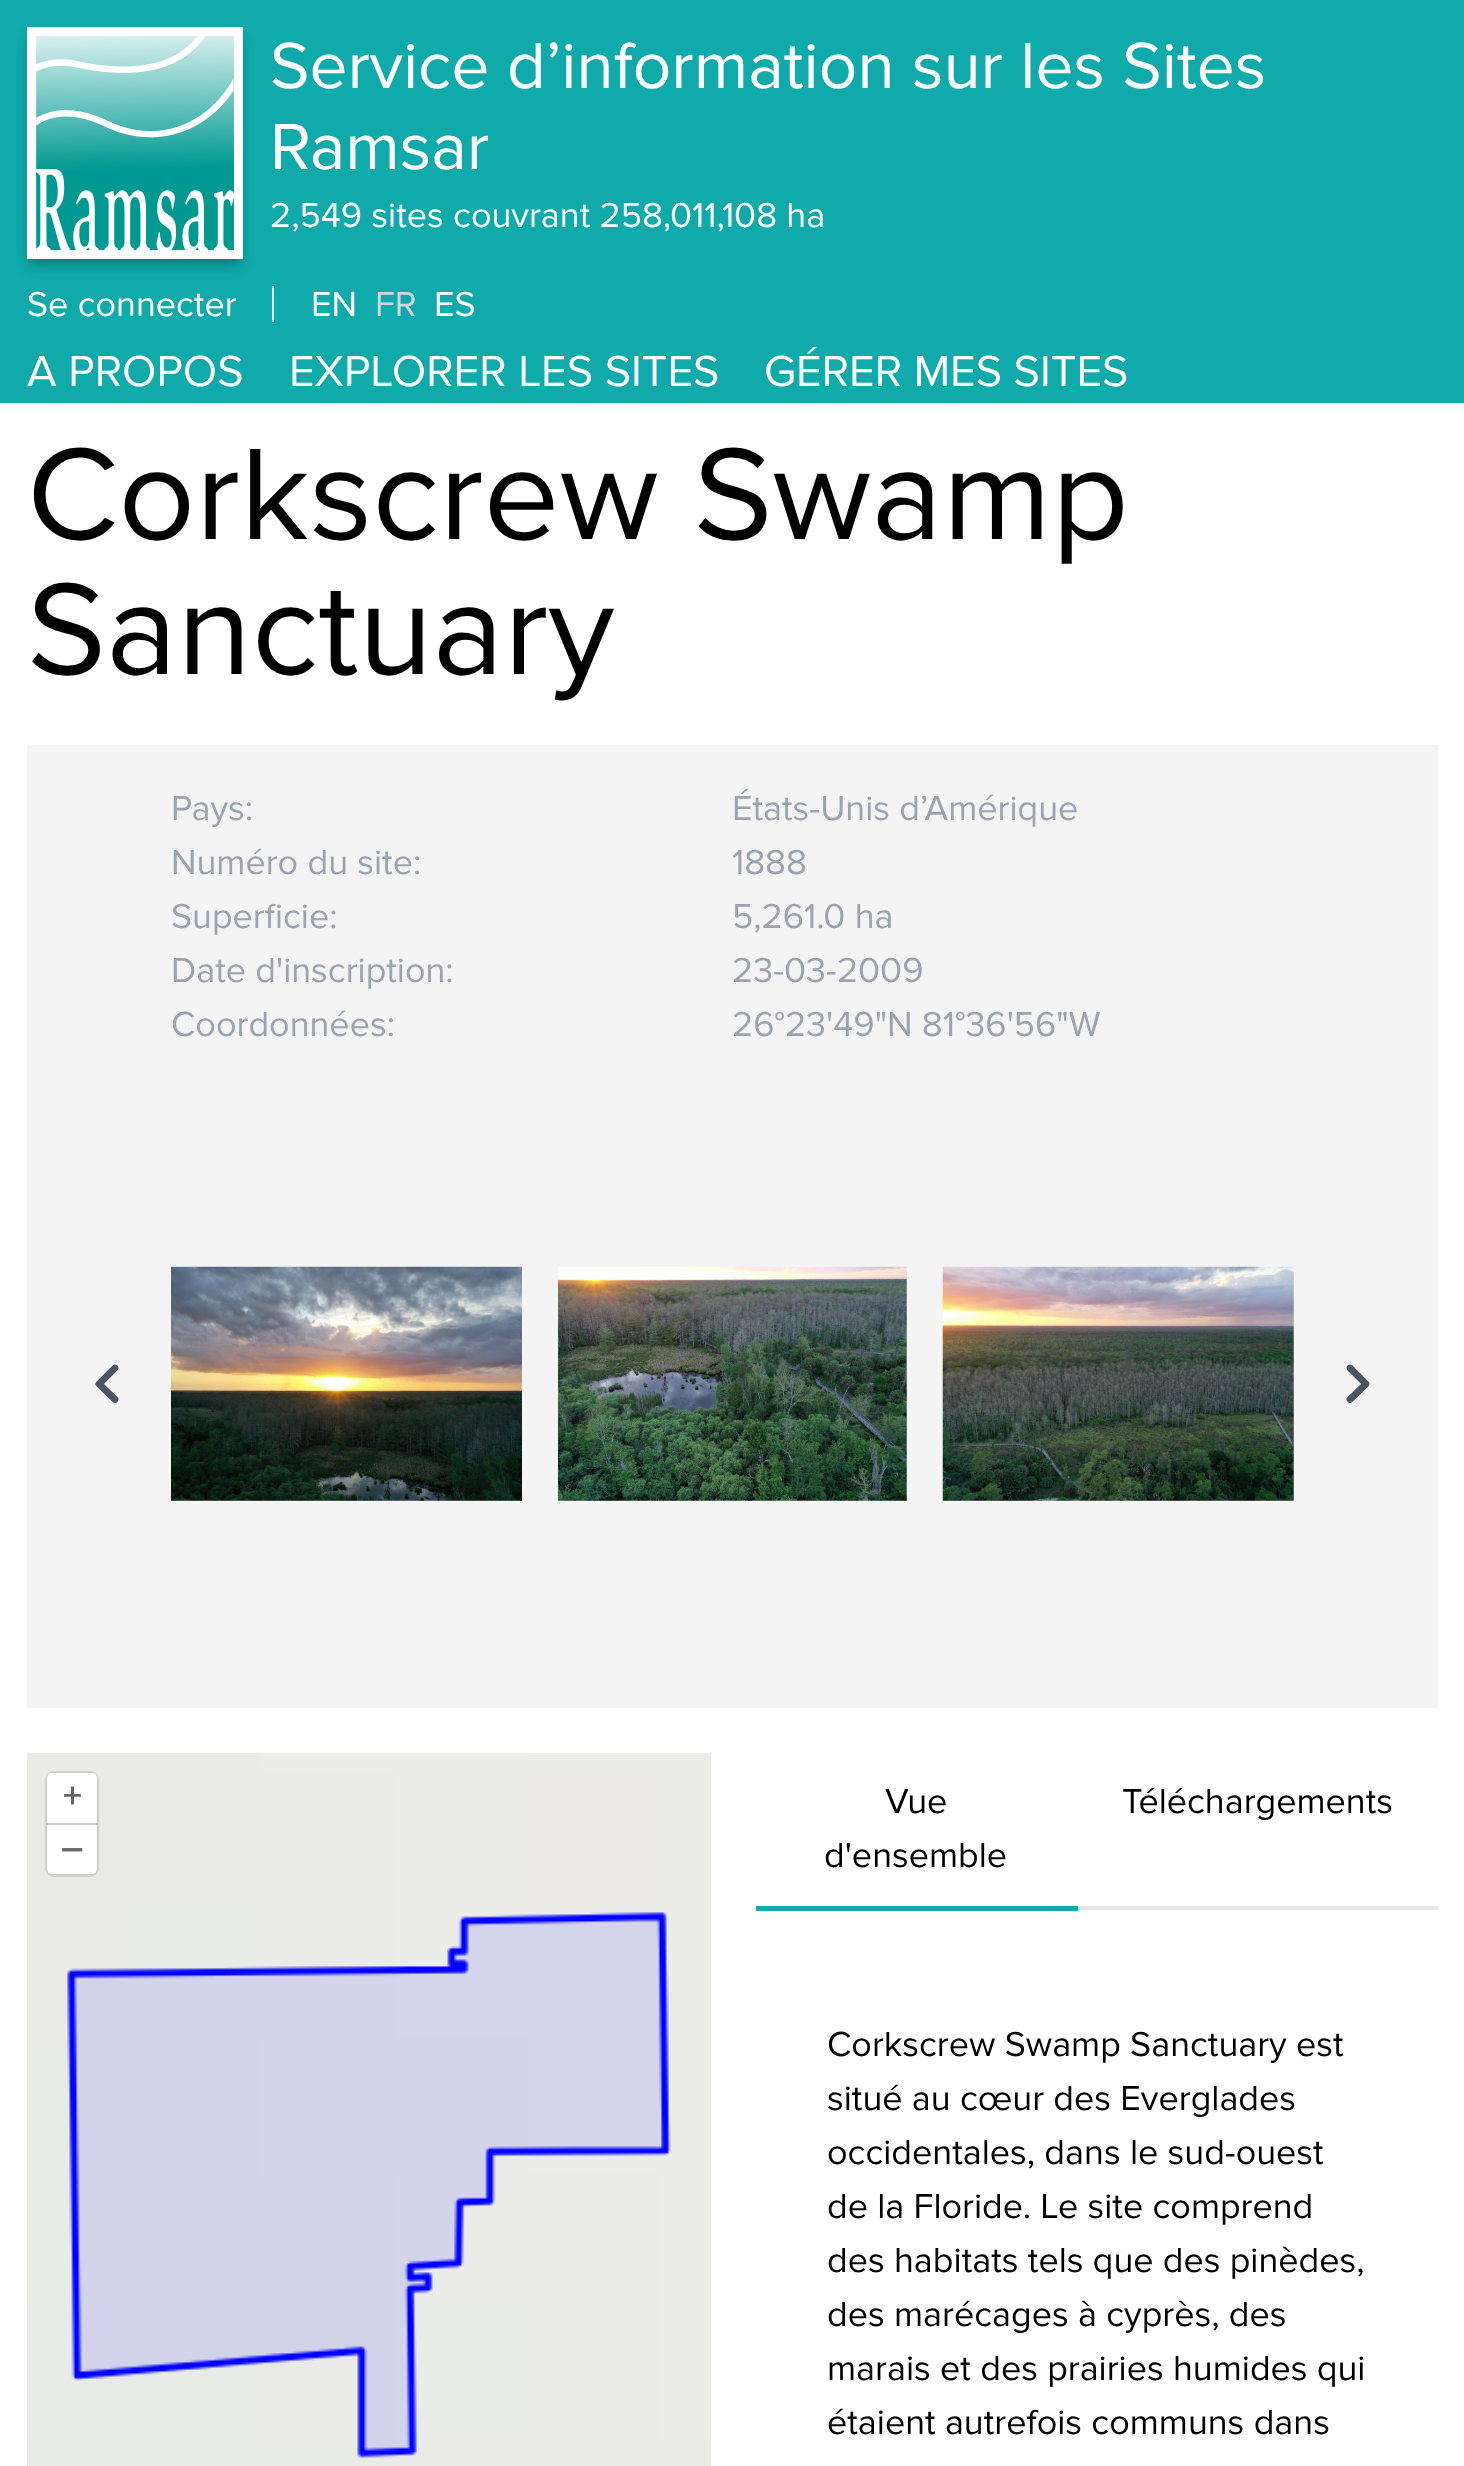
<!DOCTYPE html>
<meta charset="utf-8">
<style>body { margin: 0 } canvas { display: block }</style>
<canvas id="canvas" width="1464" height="2466"></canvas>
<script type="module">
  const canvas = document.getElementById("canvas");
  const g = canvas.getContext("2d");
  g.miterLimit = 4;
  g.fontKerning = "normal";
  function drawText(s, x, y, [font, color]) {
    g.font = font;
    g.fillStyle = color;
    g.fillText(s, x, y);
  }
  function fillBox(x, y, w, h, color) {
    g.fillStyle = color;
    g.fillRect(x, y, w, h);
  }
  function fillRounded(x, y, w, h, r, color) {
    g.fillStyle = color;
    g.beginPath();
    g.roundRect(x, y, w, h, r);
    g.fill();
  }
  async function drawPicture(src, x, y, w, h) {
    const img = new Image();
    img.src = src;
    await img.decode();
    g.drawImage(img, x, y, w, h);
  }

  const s1 = ["67.5px Proxima Nova", "#FFFFFF"];
  const s2 = ["36px Proxima Nova", "#FFFFFF"];
  const s3 = ["36px Proxima Nova", "#D1D5DB"];
  const s4 = ["45px Proxima Nova", "#FFFFFF"];
  const s5 = ["135px Proxima Nova", "#000000"];
  const s6 = ["36px Proxima Nova", "#9CA3AF"];
  const s7 = ["bold 36px Proxima Nova", "#666666"];
  const s8 = ["36px Proxima Nova", "#000000"];

  fillBox(0, 0, 1464, 2466, "#FFFFFF");
  fillBox(0, 0, 1464, 403, "#10AAAA");
  g.fillStyle = "rgba(0, 0, 0, 0.2)";
  g.filter = "blur(4.5px)";
  g.beginPath();
  g.rect(32, 36, 207, 223);
  g.fill();
  g.filter = "none";
  g.filter = "blur(7px)";
  g.beginPath();
  g.rect(29, 38, 212, 228);
  g.fill();
  g.filter = "none";
  fillBox(27, 27, 216, 232, "#FFFFFF");
  await drawPicture("pic1.png", 36, 36, 198, 214);
  drawText("Service d’information sur les Sites", 270, 88, s1);
  drawText("Ramsar", 270, 169, s1);
  drawText("2,549 sites couvrant 258,011,108 ha", 270, 227, s2);
  drawText("Se connecter", 27, 316, s2);
  fillBox(272, 286, 2, 36, "#E5E7EB");
  drawText("EN", 311, 316, s2);
  drawText("FR", 375, 316, s3);
  drawText("ES", 434, 316, s2);
  drawText("A PROPOS", 27, 386, s4);
  drawText("EXPLORER LES SITES", 289, 386, s4);
  drawText("GÉRER MES SITES", 764, 386, s4);
  drawText("Corkscrew Swamp", 27, 539, s5);
  drawText("Sanctuary", 27, 674, s5);
  fillBox(27, 745, 1411, 963, "#F4F4F5");
  drawText("Pays:", 171, 820, s6);
  drawText("États-Unis d’Amérique", 732, 820, s6);
  drawText("Numéro du site:", 171, 874, s6);
  drawText("1888", 732, 874, s6);
  drawText("Superficie:", 171, 928, s6);
  drawText("5,261.0 ha", 732, 928, s6);
  drawText("Date d'inscription:", 171, 982, s6);
  drawText("23-03-2009", 732, 982, s6);
  drawText("Coordonnées:", 171, 1036, s6);
  drawText("26°23'49\"N 81°36'56\"W", 732, 1036, s6);
  g.beginPath();
  g.moveTo(115, 1399.5);
  g.lineTo(99, 1384);
  g.lineTo(115, 1368);
  g.strokeStyle = "#4B5563";
  g.lineWidth = 6.8;
  g.lineCap = "round";
  g.lineJoin = "round";
  g.stroke();
  await drawPicture("pic2.png", 171, 1266, 351, 235);
  await drawPicture("pic3.png", 558, 1266, 349, 235);
  await drawPicture("pic4.png", 942, 1266, 352, 235);
  g.beginPath();
  g.moveTo(1350, 1368);
  g.lineTo(1366, 1384);
  g.lineTo(1350, 1399.5);
  g.stroke();
  await drawPicture("pic5.png", 27, 1752, 684, 714);
  fillRounded(45, 1771, 54, 106, 9, "#D0D0CD");
  g.fillStyle = "#FFFFFF";
  g.beginPath();
  g.roundRect(47, 1773, 50, 50, [5, 5, 0, 0]);
  g.fill();
  drawText("+", 63, 1808, s7);
  g.fillStyle = "#FFFFFF";
  g.beginPath();
  g.roundRect(47, 1825, 50, 49, [0, 0, 5, 5]);
  g.fill();
  drawText("–", 61, 1859, s7);
  fillBox(756, 1906, 322, 5, "#10AAAA");
  drawText("Vue", 885, 1813, s8);
  drawText("d'ensemble", 824, 1867, s8);
  drawText("Téléchargements", 1122, 1813, s8);
  fillBox(1078, 1906, 360, 4, "#E5E7EB");
  drawText("Corkscrew Swamp Sanctuary est", 827, 2056, s8);
  drawText("situé au cœur des Everglades", 827, 2110, s8);
  drawText("occidentales, dans le sud-ouest", 827, 2164, s8);
  drawText("de la Floride. Le site comprend", 827, 2218, s8);
  drawText("des habitats tels que des pinèdes,", 827, 2272, s8);
  drawText("des marécages à cyprès, des", 827, 2326, s8);
  drawText("marais et des prairies humides qui", 827, 2380, s8);
  drawText("étaient autrefois communs dans", 827, 2434, s8);
</script>
